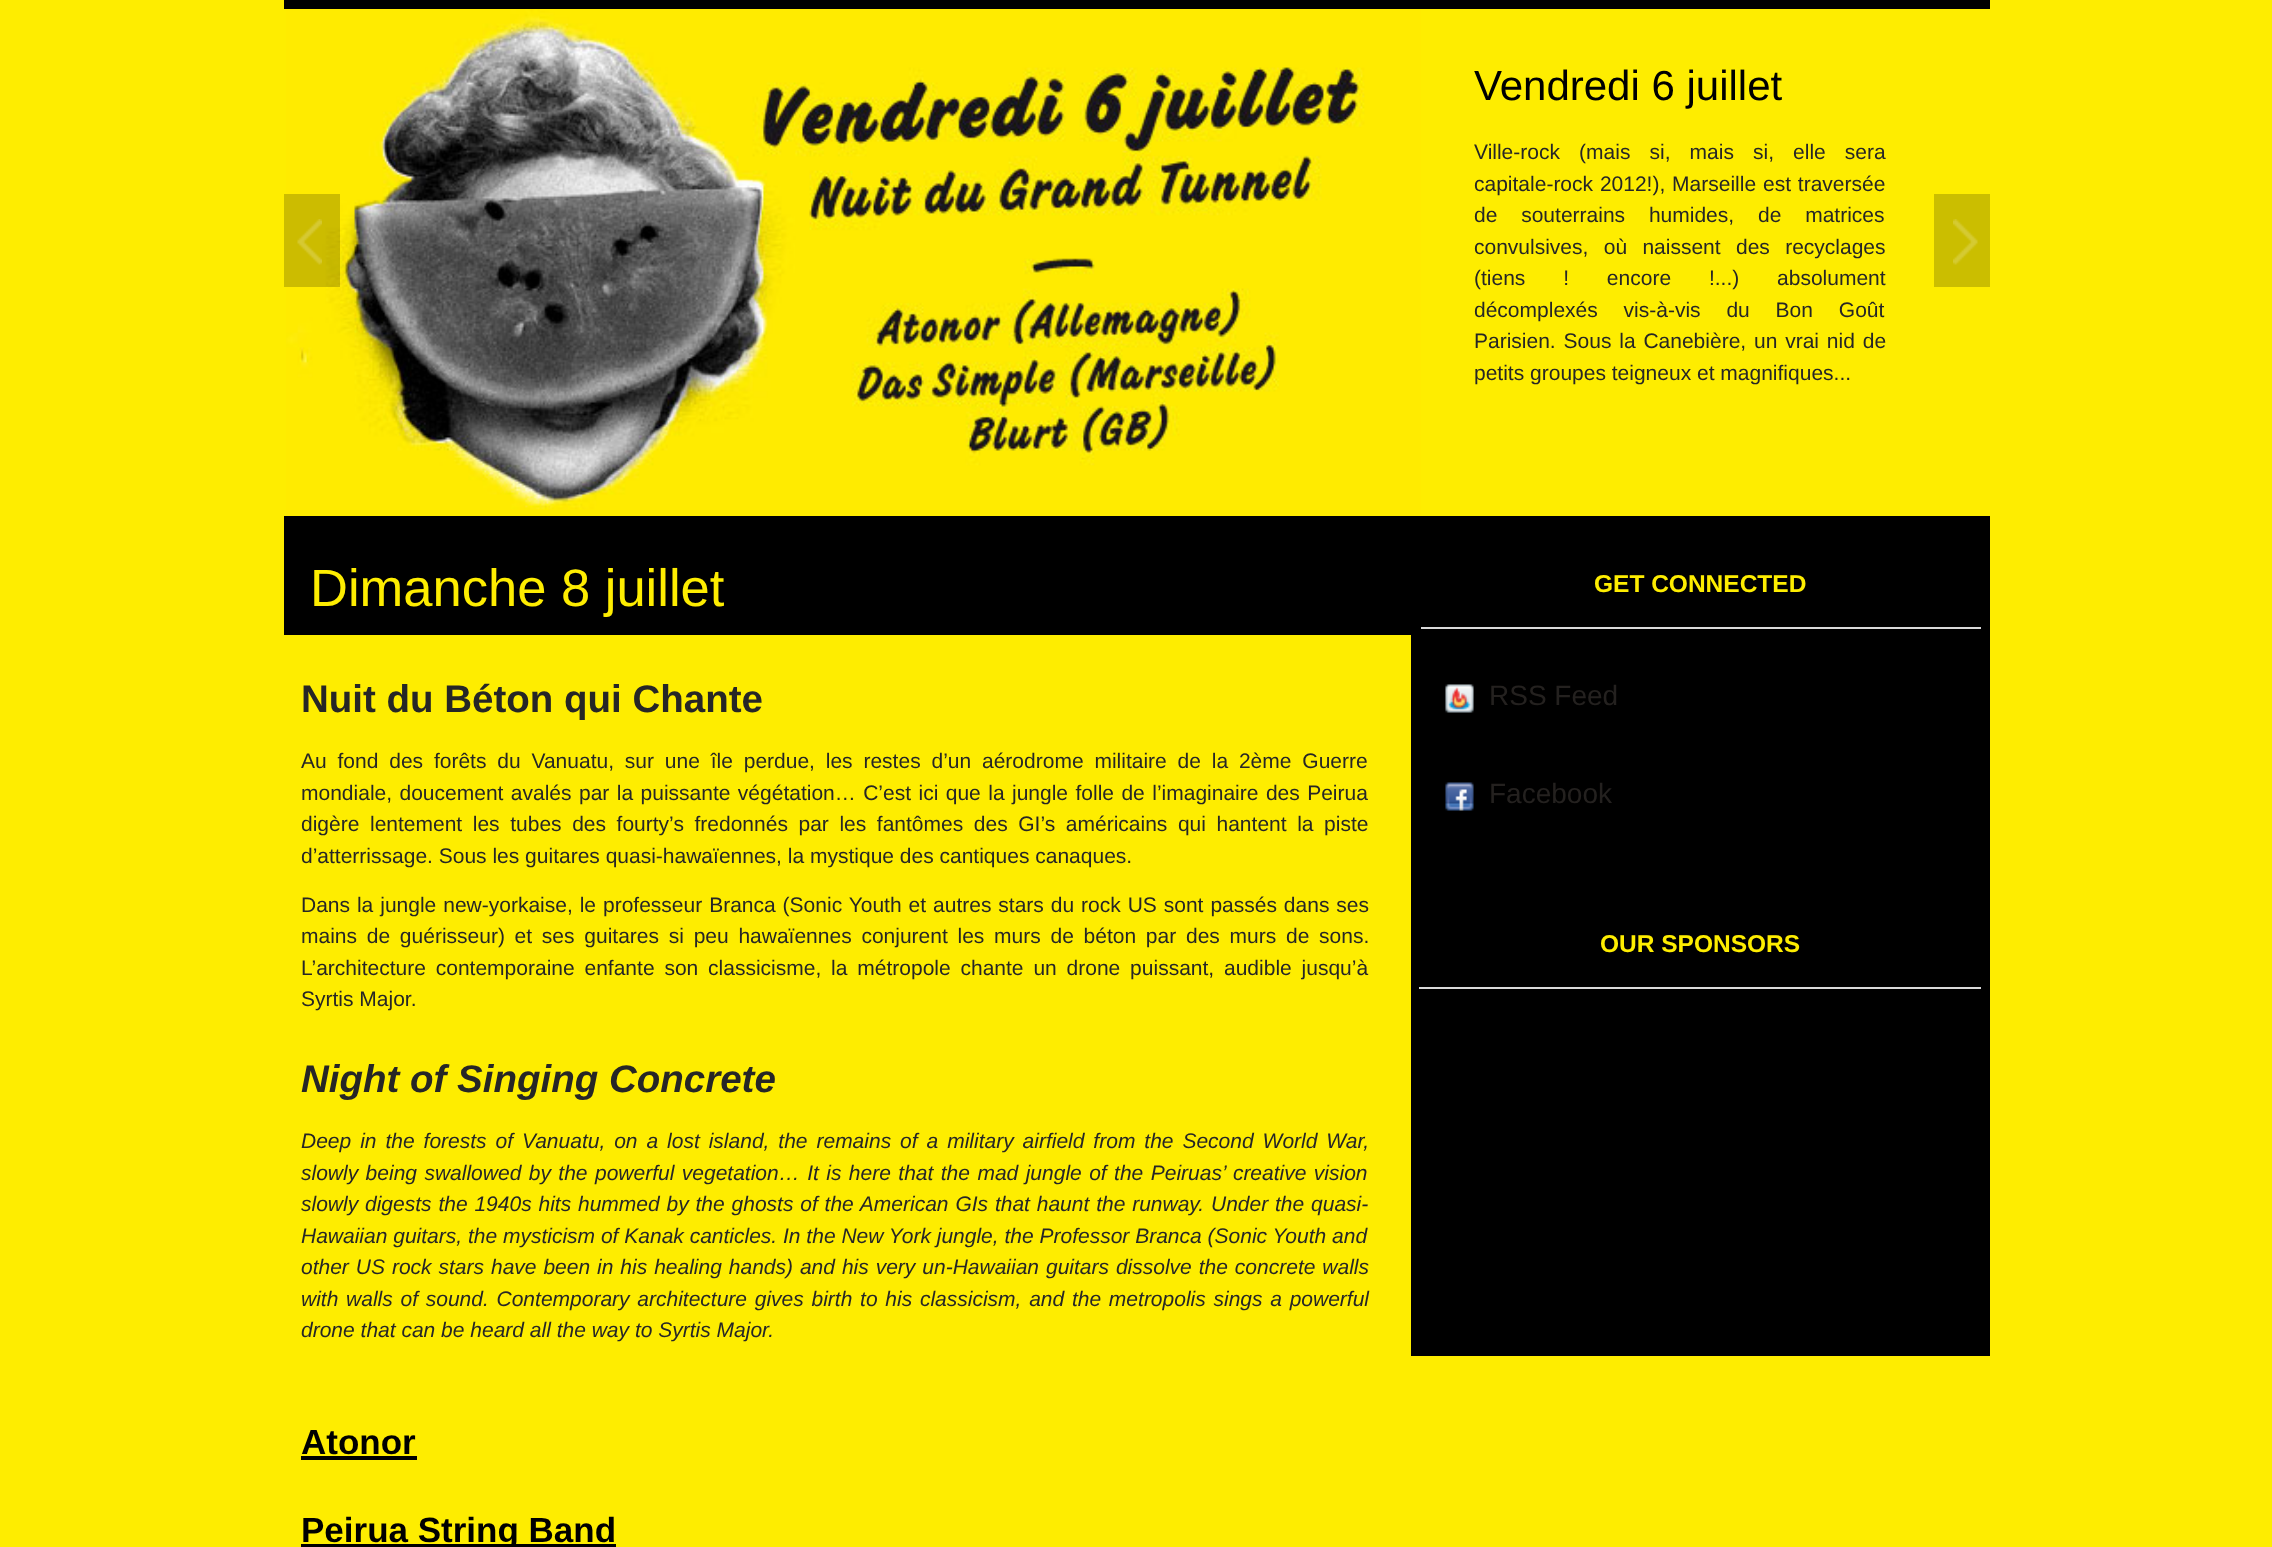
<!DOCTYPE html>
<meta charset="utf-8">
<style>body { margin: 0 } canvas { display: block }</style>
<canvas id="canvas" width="2272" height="1547"></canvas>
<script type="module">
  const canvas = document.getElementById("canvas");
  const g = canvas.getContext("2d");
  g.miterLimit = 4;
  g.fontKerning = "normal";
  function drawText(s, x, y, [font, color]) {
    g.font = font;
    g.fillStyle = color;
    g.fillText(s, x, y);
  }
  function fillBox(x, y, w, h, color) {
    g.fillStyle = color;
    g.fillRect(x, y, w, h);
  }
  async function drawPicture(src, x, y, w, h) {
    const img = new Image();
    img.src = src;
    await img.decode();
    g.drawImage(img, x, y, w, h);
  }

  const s1 = ["42px Liberation Sans", "#000000"];
  const s2 = ["21px Liberation Sans", "#262626"];
  const s3 = ["52.5px Liberation Sans", "#FEED00"];
  const s4 = ["bold 38.5px Liberation Sans", "#262626"];
  const s5 = ["italic bold 38.5px Liberation Sans", "#262626"];
  const s6 = ["italic 21px Liberation Sans", "#262626"];
  const s7 = ["bold 35px Liberation Sans", "#000000"];
  const s8 = ["bold 24.5px Liberation Sans", "#FEED00"];
  const s9 = ["28px Liberation Sans", "#24211F"];

  fillBox(0, 0, 2272, 1547, "#FEED00");
  fillBox(284, 0, 1706, 9, "#000000");
  await drawPicture("pic2.png", 286, 9, 1135, 507);
  fillBox(284, 194, 56, 93, "rgba(0, 0, 0, 0.2)");
  await drawPicture("pic1.png", 297, 219, 25, 46);
  drawText("Vendredi 6 juillet", 1474, 100, s1);
  g.wordSpacing = "13.25px";
  drawText("Ville-rock (mais si, mais si, elle sera", 1474, 159, s2);
  g.wordSpacing = "1px";
  drawText("capitale-rock 2012!), Marseille est traversée", 1474, 191, s2);
  g.wordSpacing = "18px";
  drawText("de souterrains humides, de matrices", 1474, 222, s2);
  g.wordSpacing = "9.5px";
  drawText("convulsives, où naissent des recyclages", 1474, 254, s2);
  g.wordSpacing = "32px";
  drawText("(tiens ! encore !...) absolument", 1474, 285, s2);
  g.wordSpacing = "20px";
  drawText("décomplexés vis-à-vis du Bon Goût", 1474, 317, s2);
  g.wordSpacing = "2px";
  drawText("Parisien. Sous la Canebière, un vrai nid de", 1474, 348, s2);
  g.wordSpacing = "0px";
  drawText("petits groupes teigneux et magnifiques...", 1474, 380, s2);
  fillBox(1934, 194, 56, 93, "#CBBE00");
  await drawPicture("pic3.png", 1953, 219, 25, 46);
  fillBox(1411, 516, 579, 840, "#000000");
  fillBox(1419, 627, 562, 2, "#D9D9D9");
  fillBox(284, 516, 1137, 119, "#000000");
  drawText("Dimanche 8 juillet", 310, 606, s3);
  drawText("Nuit du Béton qui Chante", 301, 712, s4);
  g.wordSpacing = "5px";
  drawText("Au fond des forêts du Vanuatu, sur une île perdue, les restes d’un aérodrome militaire de la 2ème Guerre", 301, 768, s2);
  g.wordSpacing = "1.6px";
  drawText("mondiale, doucement avalés par la puissante végétation… C’est ici que la jungle folle de l’imaginaire des Peirua", 301, 800, s2);
  g.wordSpacing = "4.75px";
  drawText("digère lentement les tubes des fourty’s fredonnés par les fantômes des GI’s américains qui hantent la piste", 301, 831, s2);
  g.wordSpacing = "0px";
  drawText("d’atterrissage. Sous les guitares quasi-hawaïennes, la mystique des cantiques canaques.", 301, 863, s2);
  g.wordSpacing = "1.1px";
  drawText("Dans la jungle new-yorkaise, le professeur Branca (Sonic Youth et autres stars du rock US sont passés dans ses", 301, 912, s2);
  g.wordSpacing = "3.9px";
  drawText("mains de guérisseur) et ses guitares si peu hawaïennes conjurent les murs de béton par des murs de sons.", 301, 943, s2);
  g.wordSpacing = "4px";
  drawText("L’architecture contemporaine enfante son classicisme, la métropole chante un drone puissant, audible jusqu’à", 301, 975, s2);
  g.wordSpacing = "0px";
  drawText("Syrtis Major.", 301, 1006, s2);
  drawText("Night of Singing Concrete", 301, 1092, s5);
  g.wordSpacing = "3.1px";
  drawText("Deep in the forests of Vanuatu, on a lost island, the remains of a military airfield from the Second World War,", 301, 1148, s6);
  g.wordSpacing = "1.6px";
  drawText("slowly being swallowed by the powerful vegetation… It is here that the mad jungle of the Peiruas’ creative vision", 301, 1180, s6);
  g.wordSpacing = "1px";
  drawText("slowly digests the 1940s hits hummed by the ghosts of the American GIs that haunt the runway. Under the quasi-", 301, 1211, s6);
  g.wordSpacing = "0px";
  drawText("Hawaiian guitars, the mysticism of Kanak canticles. In the New York jungle, the Professor Branca (Sonic Youth and", 301, 1243, s6);
  g.wordSpacing = "1.1px";
  drawText("other US rock stars have been in his healing hands) and his very un-Hawaiian guitars dissolve the concrete walls", 301, 1274, s6);
  g.wordSpacing = "1.9px";
  drawText("with walls of sound. Contemporary architecture gives birth to his classicism, and the metropolis sings a powerful", 301, 1306, s6);
  g.wordSpacing = "0px";
  drawText("drone that can be heard all the way to Syrtis Major.", 301, 1337, s6);
  drawText("Atonor", 301, 1454, s7);
  fillBox(301, 1456, 116, 4, "#000000");
  fillBox(301, 1544, 315, 3, "#000000");
  drawText("Peirua String Band", 301, 1542, s7);
  drawText("GET CONNECTED", 1594, 592, s8);
  await drawPicture("pic4.png", 1445, 684, 29, 29);
  drawText("RSS Feed", 1489, 705, s9);
  await drawPicture("pic5.png", 1445, 782, 29, 29);
  drawText("Facebook", 1489, 803, s9);
  fillBox(1419, 987, 562, 2, "#D9D9D9");
  drawText("OUR SPONSORS", 1600, 952, s8);
</script>
